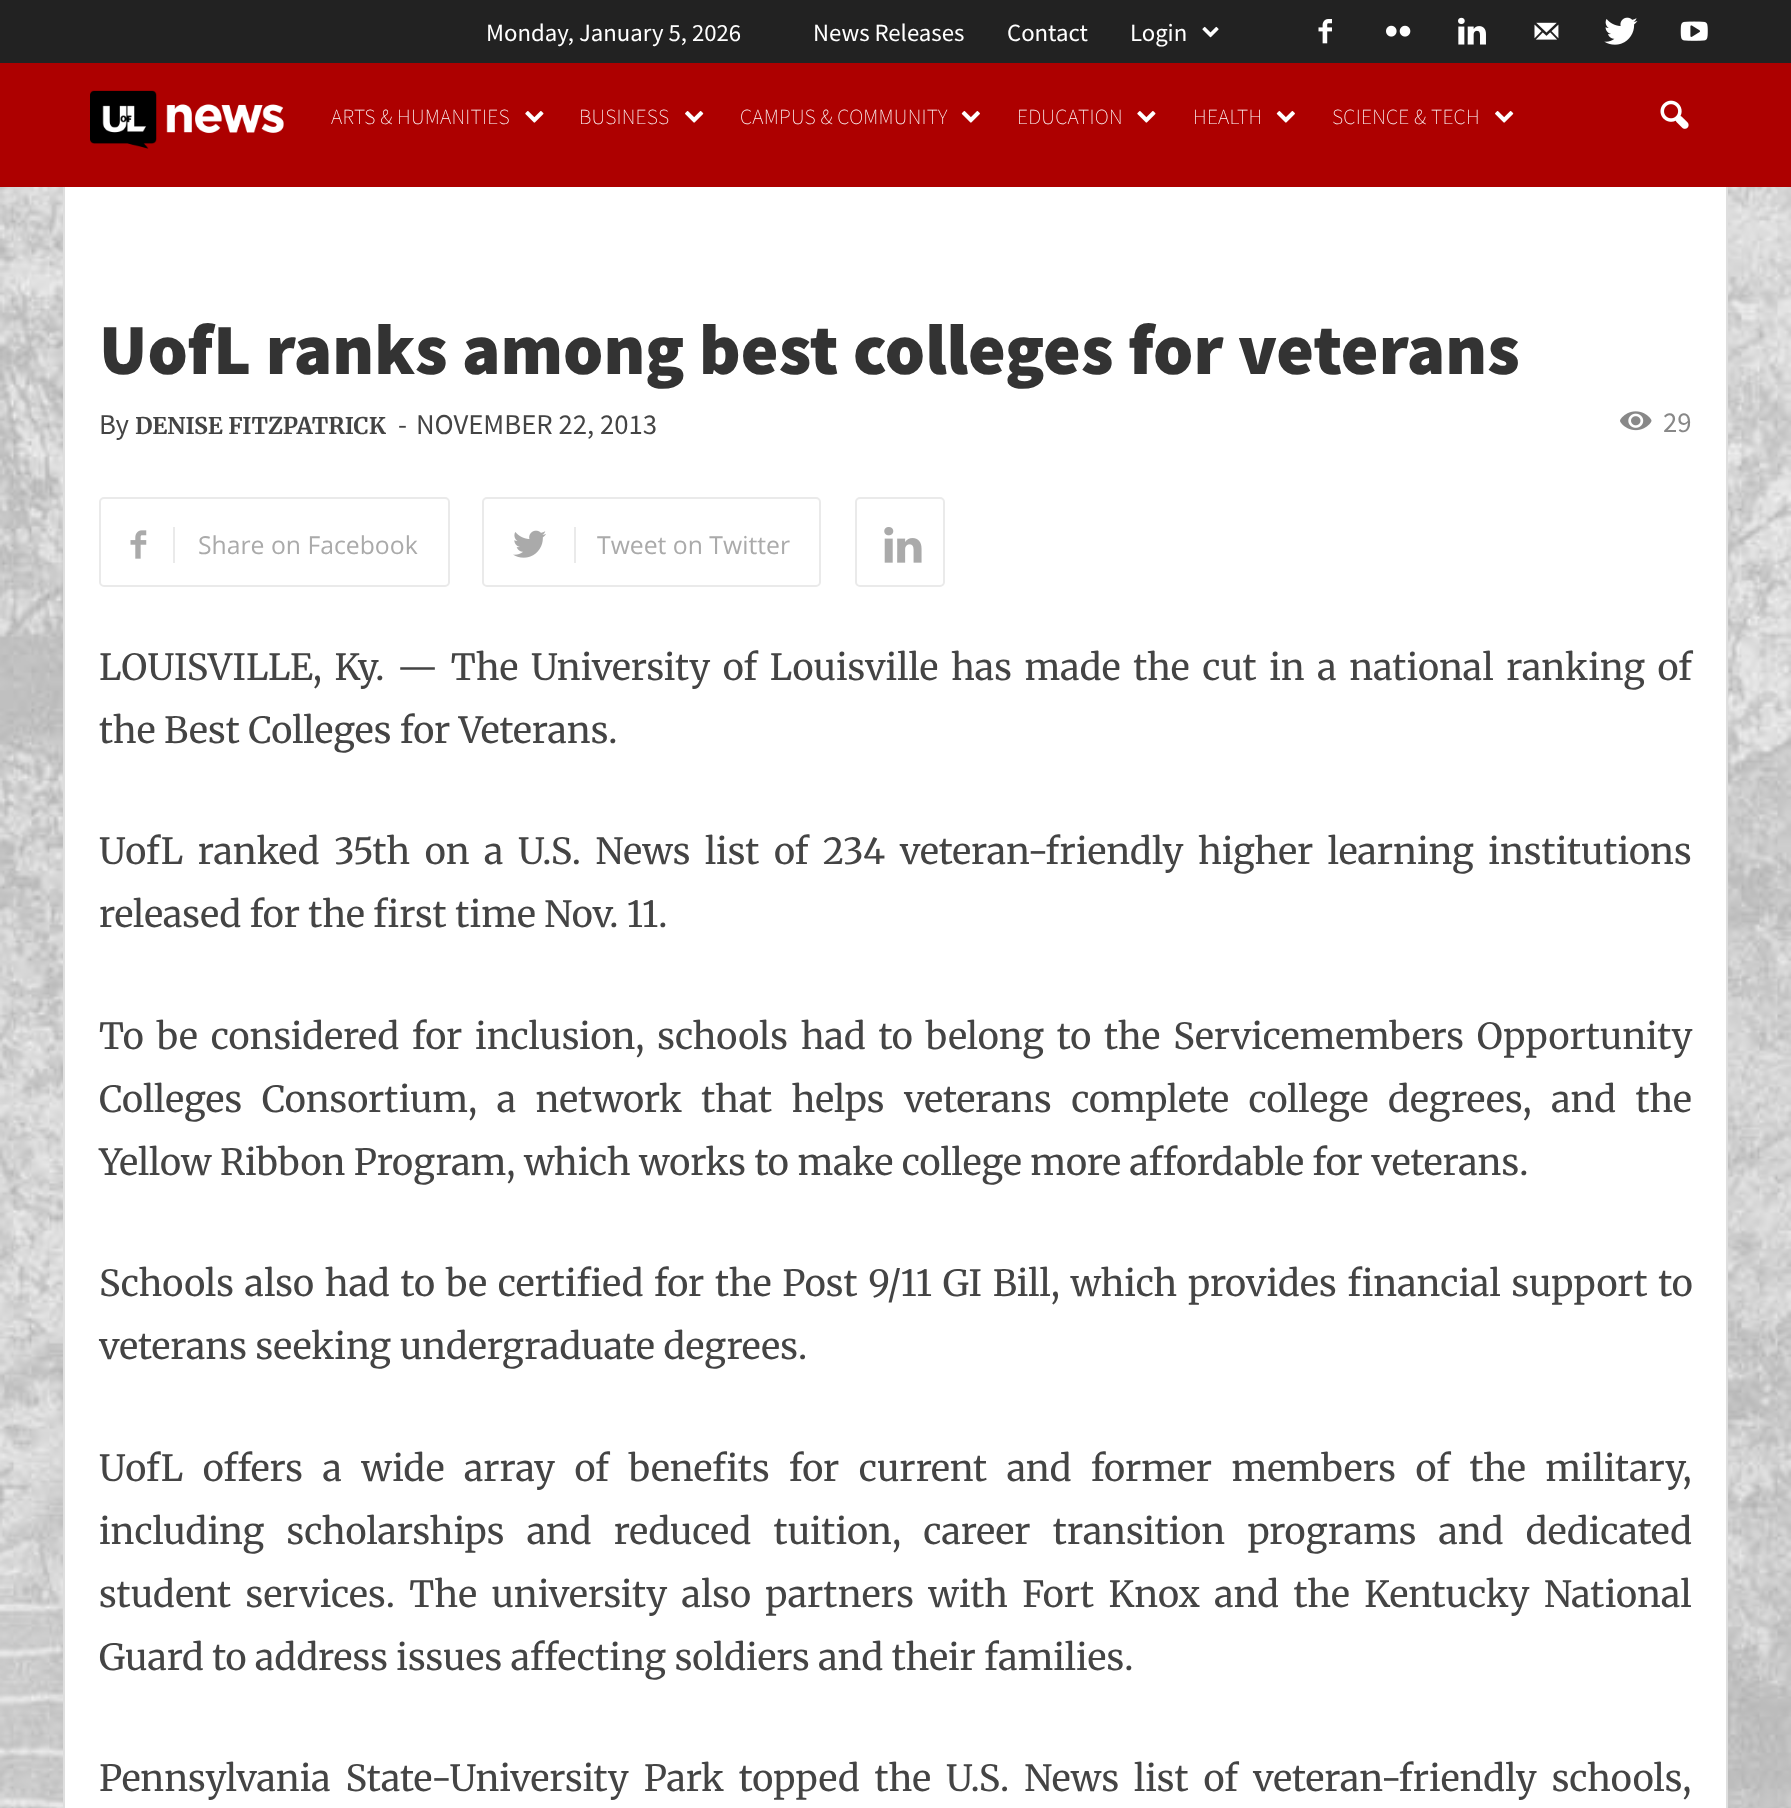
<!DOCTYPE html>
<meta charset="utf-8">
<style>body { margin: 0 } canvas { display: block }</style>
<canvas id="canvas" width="1791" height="1808"></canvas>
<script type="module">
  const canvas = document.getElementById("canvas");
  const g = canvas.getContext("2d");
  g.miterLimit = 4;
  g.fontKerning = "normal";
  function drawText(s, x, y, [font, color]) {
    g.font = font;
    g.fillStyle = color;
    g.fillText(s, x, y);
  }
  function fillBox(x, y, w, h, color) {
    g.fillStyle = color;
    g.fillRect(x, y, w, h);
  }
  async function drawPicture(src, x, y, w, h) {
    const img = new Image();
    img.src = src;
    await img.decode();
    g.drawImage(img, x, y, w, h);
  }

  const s1 = ["24.75px Source Sans Pro", "#FFFFFF"];
  const s2 = ["200 21.5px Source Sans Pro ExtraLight", "#FFFFFF"];
  const s3 = ["900 72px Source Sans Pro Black", "#333333"];
  const s4 = ["28.75px Source Sans Pro", "#444444"];
  const s5 = ["bold 23px Merriweather", "#444444"];
  const s6 = ["28.75px Source Sans Pro", "#888888"];
  const s7 = ["24.75px Open Sans", "#AAAAAA"];
  const s8 = ["36px Merriweather", "#444444"];

  fillBox(0, 0, 1791, 1808, "#FFFFFF");
  fillBox(0, 0, 1791, 63, "#222222");
  drawText("Monday, January 5, 2026", 486, 41, s1);
  drawText("News Releases", 813, 41, s1);
  drawText("Contact", 1007, 41, s1);
  drawText("Login", 1130, 41, s1);
  await drawPicture("pic1.png", 1202, 26, 17, 12);
  await drawPicture("pic2.png", 1318, 19, 14, 25);
  await drawPicture("pic3.png", 1386, 25, 25, 12);
  await drawPicture("pic4.png", 1458, 17, 28, 28);
  await drawPicture("pic5.png", 1534, 22, 25, 18);
  await drawPicture("pic6.png", 1604, 17, 34, 28);
  await drawPicture("pic7.png", 1680, 21, 28, 20);
  fillBox(0, 63, 1791, 124, "#AD0000");
  await drawPicture("pic8.png", 90, 90, 194, 59);
  g.letterSpacing = "0.25px";
  drawText("ARTS & HUMANITIES", 331, 124, s2);
  await drawPicture("pic9.png", 525, 111, 19, 12);
  drawText("BUSINESS", 579, 124, s2);
  await drawPicture("pic10.png", 685, 111, 19, 12);
  drawText("CAMPUS & COMMUNITY", 740, 124, s2);
  await drawPicture("pic11.png", 961, 111, 19, 12);
  drawText("EDUCATION", 1017, 124, s2);
  await drawPicture("pic9.png", 1137, 111, 19, 12);
  drawText("HEALTH", 1193, 124, s2);
  await drawPicture("pic11.png", 1276, 111, 19, 12);
  drawText("SCIENCE & TECH", 1332, 124, s2);
  await drawPicture("pic10.png", 1495, 111, 19, 12);
  await drawPicture("pic12.png", 1660, 100, 29, 29);
  await drawPicture("pic13.png", 0, 187, 1791, 1621);
  fillBox(65, 187, 1661, 1621, "#FFFFFF");
  fillBox(1726, 187, 2, 1621, "#DEDEDE");
  fillBox(63, 187, 2, 1621, "#DEDEDE");
  g.letterSpacing = "0px";
  drawText("UofL ranks among best colleges for veterans", 99, 374, s3);
  drawText("By", 99, 434, s4);
  drawText("DENISE FITZPATRICK", 135, 434, s5);
  drawText("-", 398, 434, s4);
  drawText("NOVEMBER 22, 2013", 416, 434, s4);
  await drawPicture("pic14.png", 1620, 411, 32, 20);
  drawText("29", 1663, 432, s6);
  g.beginPath();
  g.roundRect(100, 498, 349, 88, 4);
  g.strokeStyle = "#EAEAEA";
  g.lineWidth = 2;
  g.stroke();
  await drawPicture("pic15.png", 130, 530, 17, 29);
  fillBox(173, 527, 2, 36, "#EAEAEA");
  drawText("Share on Facebook", 198, 554, s7);
  g.beginPath();
  g.roundRect(483, 498, 337, 88, 4);
  g.stroke();
  await drawPicture("pic16.png", 513, 530, 33, 28);
  fillBox(574, 527, 2, 36, "#EAEAEA");
  drawText("Tweet on Twitter", 597, 554, s7);
  g.beginPath();
  g.roundRect(856, 498, 88, 88, 4);
  g.stroke();
  await drawPicture("pic17.png", 884, 527, 38, 36);
  g.wordSpacing = "4.1px";
  drawText("LOUISVILLE, Ky. — The University of Louisville has made the cut in a national ranking of", 99, 680, s8);
  g.wordSpacing = "0px";
  drawText("the Best Colleges for Veterans.", 99, 743, s8);
  g.wordSpacing = "6px";
  drawText("UofL ranked 35th on a U.S. News list of 234 veteran-friendly higher learning institutions", 99, 864, s8);
  g.wordSpacing = "0px";
  drawText("released for the first time Nov. 11.", 99, 927, s8);
  g.wordSpacing = "4.25px";
  drawText("To be considered for inclusion, schools had to belong to the Servicemembers Opportunity", 99, 1049, s8);
  g.wordSpacing = "10.9px";
  drawText("Colleges Consortium, a network that helps veterans complete college degrees, and the", 99, 1112, s8);
  g.wordSpacing = "0px";
  drawText("Yellow Ribbon Program, which works to make college more affordable for veterans.", 99, 1175, s8);
  g.wordSpacing = "2.25px";
  drawText("Schools also had to be certified for the Post 9/11 GI Bill, which provides financial support to", 99, 1296, s8);
  g.wordSpacing = "0px";
  drawText("veterans seeking undergraduate degrees.", 99, 1359, s8);
  g.wordSpacing = "11px";
  drawText("UofL offers a wide array of benefits for current and former members of the military,", 99, 1481, s8);
  g.wordSpacing = "13.75px";
  drawText("including scholarships and reduced tuition, career transition programs and dedicated", 99, 1544, s8);
  g.wordSpacing = "5.9px";
  drawText("student services. The university also partners with Fort Knox and the Kentucky National", 99, 1607, s8);
  g.wordSpacing = "0px";
  drawText("Guard to address issues affecting soldiers and their families.", 99, 1670, s8);
  g.wordSpacing = "6.5px";
  drawText("Pennsylvania State-University Park topped the U.S. News list of veteran-friendly schools,", 99, 1791, s8);
</script>
